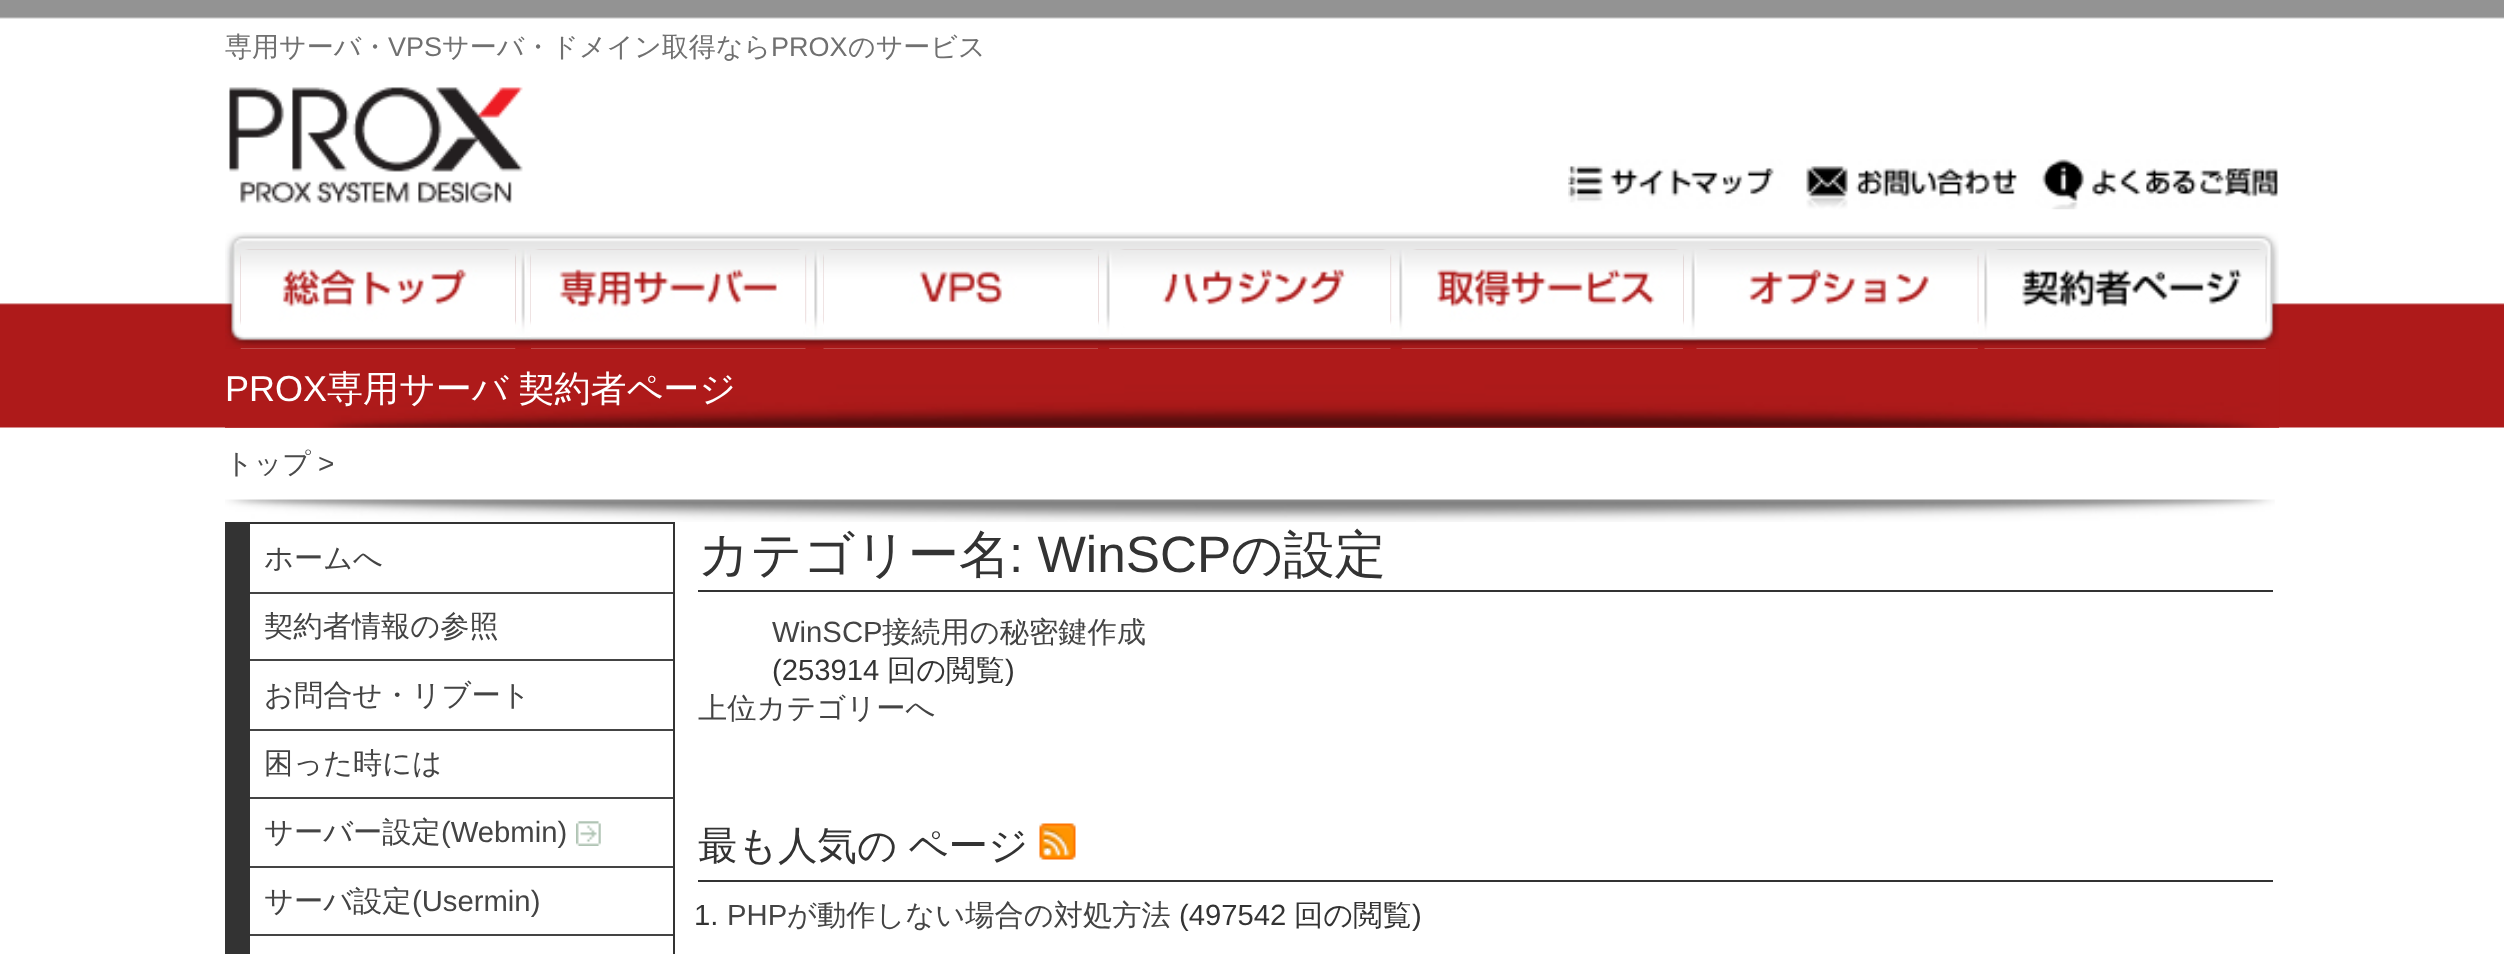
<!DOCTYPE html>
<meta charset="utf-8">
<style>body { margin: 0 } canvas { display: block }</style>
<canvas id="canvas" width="2504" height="954"></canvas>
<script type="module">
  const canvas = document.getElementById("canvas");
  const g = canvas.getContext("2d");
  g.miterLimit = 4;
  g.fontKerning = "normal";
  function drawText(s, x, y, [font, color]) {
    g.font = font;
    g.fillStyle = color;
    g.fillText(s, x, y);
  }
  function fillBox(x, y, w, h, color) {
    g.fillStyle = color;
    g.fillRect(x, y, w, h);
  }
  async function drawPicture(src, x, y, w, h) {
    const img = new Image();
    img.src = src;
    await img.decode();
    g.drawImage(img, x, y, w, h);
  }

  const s1 = ["500 27px WenQuanYi Zen Hei", "#707070"];
  const s2 = ["27px Liberation Sans", "#707070"];
  const s3 = ["36px Liberation Sans", "#FFFFFF"];
  const s4 = ["500 36px WenQuanYi Zen Hei", "#FFFFFF"];
  const s5 = ["500 28px WenQuanYi Zen Hei", "#4B4B4B"];
  const s6 = ["28px Liberation Sans", "#4B4B4B"];
  const s7 = ["500 29.25px WenQuanYi Zen Hei", "#444444"];
  const s8 = ["29.25px Liberation Sans", "#444444"];
  const s9 = ["500 51.25px WenQuanYi Zen Hei", "#333333"];
  const s10 = ["51.25px Liberation Sans", "#333333"];
  const s11 = ["29.25px Liberation Sans", "#333333"];
  const s12 = ["500 29.25px WenQuanYi Zen Hei", "#333333"];
  const s13 = ["500 39.5px WenQuanYi Zen Hei", "#333333"];

  fillBox(0, 0, 2504, 954, "#FFFFFF");
  await drawPicture("pic1.png", 0, 0, 2504, 428);
  await drawPicture("pic2.png", 225, 0, 2054, 428);
  drawText("専用サーバ・", 225, 56, s1);
  drawText("VPS", 388, 56, s2);
  drawText("サーバ・ドメイン取得なら", 442, 56, s1);
  drawText("PROX", 771, 56, s2);
  drawText("のサービス", 848, 56, s1);
  await drawPicture("pic3.png", 229, 87, 294, 117);
  await drawPicture("pic4.png", 1568, 159, 710, 51);
  await drawPicture("pic9.png", 225, 232, 2054, 117);
  await drawPicture("pic10.png", 240, 249, 276, 100);
  await drawPicture("pic11.png", 531, 249, 275, 100);
  await drawPicture("pic12.png", 823, 249, 275, 100);
  await drawPicture("pic13.png", 1109, 249, 282, 100);
  await drawPicture("pic14.png", 1401, 249, 282, 100);
  await drawPicture("pic15.png", 1696, 249, 282, 100);
  await drawPicture("pic16.png", 1984, 249, 282, 100);
  await drawPicture("pic5.png", 225, 348, 2055, 80);
  drawText("PROX", 225, 401, s3);
  g.wordSpacing = "-1px";
  drawText("専用サーバ 契約者ページ", 327, 401, s4);
  await drawPicture("pic6.png", 225, 499, 2050, 23);
  g.wordSpacing = "0px";
  drawText("トップ", 225, 473, s5);
  drawText(">", 318, 473, s6);
  g.strokeStyle = "#333333";
  g.lineWidth = 2;
  g.strokeRect(226, 523, 448, 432);
  fillBox(227, 524, 23, 430, "#333333");
  fillBox(250, 592, 423, 2, "#444444");
  drawText("ホームへ", 264, 568, s7);
  fillBox(250, 659, 423, 2, "#444444");
  drawText("契約者情報の参照", 264, 636, s7);
  fillBox(250, 729, 423, 2, "#444444");
  drawText("お問合せ・リブート", 264, 705, s7);
  fillBox(250, 797, 423, 2, "#444444");
  drawText("困った時には", 264, 773, s7);
  fillBox(250, 866, 423, 2, "#444444");
  drawText("サーバー設定", 264, 842, s7);
  drawText("(Webmin)", 441, 842, s8);
  await drawPicture("pic7.png", 576, 821, 25, 25);
  fillBox(250, 934, 423, 2, "#444444");
  drawText("サーバ設定", 264, 911, s7);
  drawText("(Usermin)", 412, 911, s8);
  fillBox(698, 590, 1575, 2, "#333333");
  drawText("カテゴリー名", 698, 572, s9);
  drawText(": WinSCP", 1009, 572, s10);
  drawText("の設定", 1231, 572, s9);
  drawText("WinSCP", 772, 642, s8);
  drawText("接続用の秘密鍵作成", 882, 642, s7);
  drawText("(253914", 772, 680, s11);
  drawText("回の閲覧", 887, 680, s12);
  drawText(")", 1005, 680, s11);
  drawText("上位カテゴリーへ", 698, 718, s7);
  fillBox(698, 880, 1575, 2, "#333333");
  g.wordSpacing = "-1px";
  drawText("最も人気の ページ", 698, 859, s13);
  await drawPicture("pic8.png", 1039, 823, 37, 37);
  g.wordSpacing = "0px";
  drawText("1.", 694, 925, s11);
  drawText("PHP", 727, 925, s8);
  drawText("が動作しない場合の対処方法", 787, 925, s7);
  drawText("(497542", 1179, 925, s11);
  drawText("回の閲覧", 1294, 925, s12);
  drawText(")", 1412, 925, s11);
</script>
